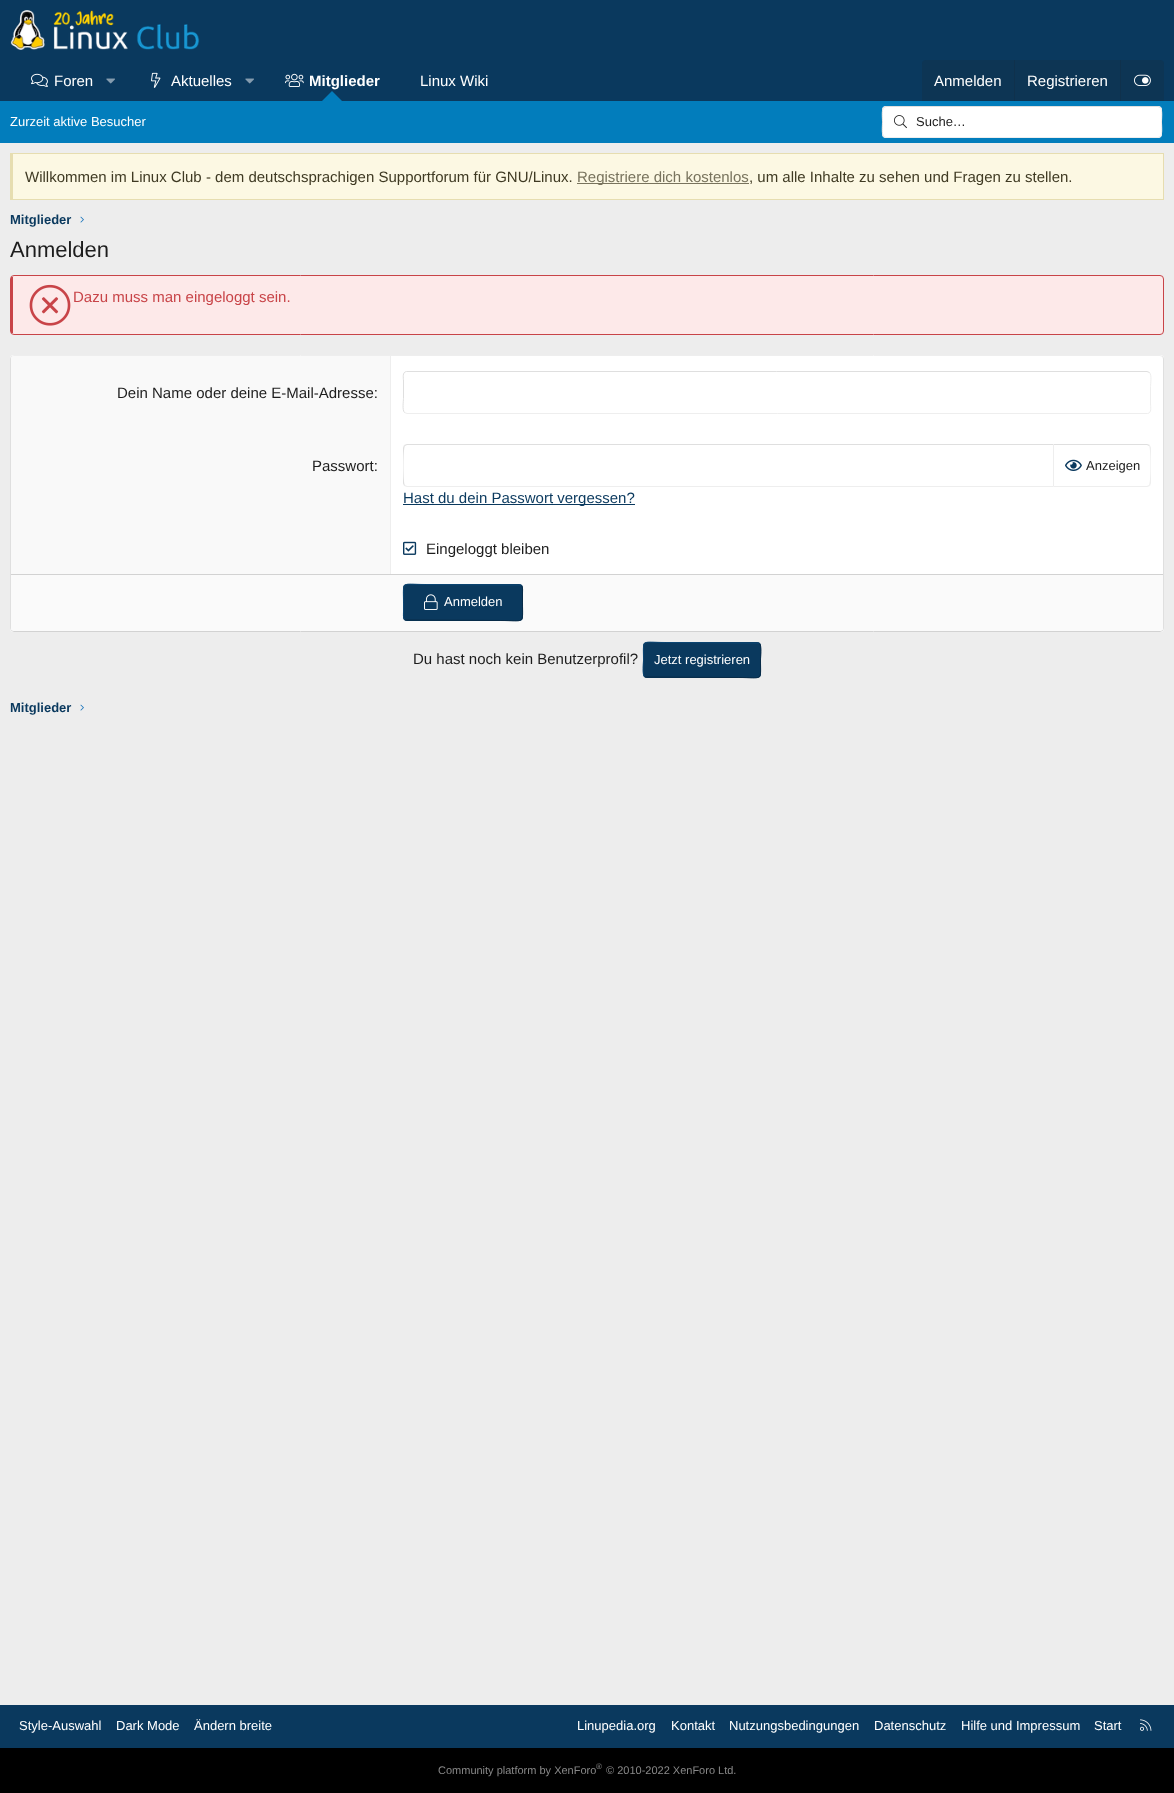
<!DOCTYPE html>
<meta charset="utf-8">
<style>body { margin: 0 } canvas { display: block }</style>
<canvas id="canvas" width="1174" height="1793"></canvas>
<script type="module">
  const canvas = document.getElementById("canvas");
  const g = canvas.getContext("2d");
  g.miterLimit = 4;
  g.fontKerning = "normal";
  function drawText(s, x, y, [font, color]) {
    g.font = font;
    g.fillStyle = color;
    g.fillText(s, x, y);
  }
  function fillBox(x, y, w, h, color) {
    g.fillStyle = color;
    g.fillRect(x, y, w, h);
  }
  function fillRounded(x, y, w, h, r, color) {
    g.fillStyle = color;
    g.beginPath();
    g.roundRect(x, y, w, h, r);
    g.fill();
  }
  async function drawPicture(src, x, y, w, h) {
    const img = new Image();
    img.src = src;
    await img.decode();
    g.drawImage(img, x, y, w, h);
  }

  const s1 = ["15px Liberation Sans", "#FFFFFF"];
  const s2 = ["bold 15px Liberation Sans", "#FFFFFF"];
  const s3 = ["13px Liberation Sans", "#FFFFFF"];
  const s4 = ["13px Liberation Sans", "#1D1D1D"];
  const s5 = ["15px Liberation Sans", "#3F3A23"];
  const s6 = ["15px Liberation Sans", "#78735D"];
  const s7 = ["bold 13px Liberation Sans", "#0A395E"];
  const s8 = ["22px Liberation Sans", "#1D1D1D"];
  const s9 = ["15px Liberation Sans", "#C84448"];
  const s10 = ["15px Liberation Sans", "#1D1D1D"];
  const s11 = ["15px Liberation Sans", "#0A395E"];
  const s12 = ["11px Liberation Sans", "#888888"];
  const s13 = ["8px Liberation Sans", "#888888"];

  fillBox(0, 0, 1174, 1793, "#EDEDED");
  fillBox(0, 0, 1174, 101, "#0A395E");
  await drawPicture("pic1.png", 10, 10, 190, 40);
  await drawPicture("pic2.png", 31, 73, 17, 14);
  drawText("Foren", 54, 86, s1);
  await drawPicture("pic3.png", 106, 78, 9, 6);
  await drawPicture("pic4.png", 151, 72, 10, 16);
  drawText("Aktuelles", 171, 86, s1);
  await drawPicture("pic3.png", 245, 78, 9, 6);
  await drawPicture("pic5.png", 285, 73, 19, 14);
  drawText("Mitglieder", 309, 86, s2);
  g.fillStyle = "#027DBC";
  g.beginPath();
  g.moveTo(342, 101);
  g.lineTo(322, 101);
  g.lineTo(332, 91);
  g.closePath();
  g.fill();
  drawText("Linux Wiki", 420, 86, s1);
  g.fillStyle = "#0D3554";
  g.beginPath();
  g.roundRect(922, 60, 242, 41, [4, 4, 0, 0]);
  g.fill();
  drawText("Anmelden", 934, 86, s1);
  fillBox(1014, 60, 1, 41, "#0F314C");
  drawText("Registrieren", 1027, 86, s1);
  fillBox(1120, 60, 1, 41, "#0F314C");
  await drawPicture("pic6.png", 1134, 74, 17, 12);
  fillBox(0, 101, 1174, 42, "#027DBC");
  drawText("Zurzeit aktive Besucher", 10, 126, s3);
  fillRounded(882, 106, 280, 32, 4, "#FFFFFF");
  g.beginPath();
  g.moveTo(1160.5, 107.5);
  g.bezierCurveTo(1162.5, 110, 1161.5, 119, 1161.5, 122);
  g.bezierCurveTo(1161.5, 125, 1162.5, 134, 1160.5, 136.5);
  g.lineTo(1158, 137.5);
  g.lineTo(886, 137.5);
  g.lineTo(883.5, 136.5);
  g.strokeStyle = "#EEEEEE";
  g.stroke();
  g.beginPath();
  g.moveTo(883.5, 136.5);
  g.bezierCurveTo(881.5, 134, 882.5, 125, 882.5, 122);
  g.bezierCurveTo(882.5, 119, 881.5, 110, 883.5, 107.5);
  g.lineTo(886, 106.5);
  g.lineTo(1158, 106.5);
  g.lineTo(1160.5, 107.5);
  g.strokeStyle = "#DFDFDF";
  g.stroke();
  await drawPicture("pic7.png", 894, 115, 13, 14);
  drawText("Suche…", 916, 126, s4);
  fillBox(13, 154, 1150, 45, "#FCF8E3");
  fillBox(10, 153, 1154, 1, "#E6DDB0");
  fillBox(1163, 153, 1, 47, "#E6DDB0");
  fillBox(10, 199, 1154, 1, "#E6DDB0");
  fillBox(10, 153, 3, 47, "#E6DDB0");
  drawText("Willkommen im Linux Club - dem deutschsprachigen Supportforum für GNU/Linux.", 25, 182, s5);
  fillBox(577, 183, 172, 1, "#78735D");
  drawText("Registriere dich kostenlos", 577, 182, s6);
  drawText(", um alle Inhalte zu sehen und Fragen zu stellen.", 749, 182, s5);
  drawText("Mitglieder", 10, 224, s7);
  await drawPicture("pic8.png", 80, 216, 4, 7);
  drawText("Anmelden", 10, 257, s8);
  g.fillStyle = "#FDE9E9";
  g.beginPath();
  g.moveTo(14, 276);
  g.lineTo(1160, 276);
  g.bezierCurveTo(1162, 276, 1163, 277, 1163, 279);
  g.lineTo(1163, 331);
  g.bezierCurveTo(1163, 333, 1162, 334, 1160, 334);
  g.lineTo(14, 334);
  g.bezierCurveTo(13, 334, 13, 333, 13, 331);
  g.lineTo(13, 279);
  g.bezierCurveTo(13, 277, 13, 276, 14, 276);
  g.closePath();
  g.fill();
  g.beginPath();
  g.roundRect(10.5, 275.5, 1153, 59, 3.5);
  g.strokeStyle = "#C84448";
  g.stroke();
  fillBox(11, 277, 2, 56, "#C84448");
  await drawPicture("pic9.png", 29, 284, 42, 42);
  drawText("Dazu muss man eingeloggt sein.", 73, 302, s9);
  fillRounded(10, 355, 1154, 277, 4, "#FFFFFF");
  g.beginPath();
  g.moveTo(11.5, 356.5);
  g.lineTo(14, 355.5);
  g.lineTo(1160, 355.5);
  g.lineTo(1162.5, 356.5);
  g.strokeStyle = "#EEEEEE";
  g.stroke();
  g.beginPath();
  g.moveTo(1162.5, 356.5);
  g.bezierCurveTo(1163, 357, 1163.5, 358, 1163.5, 359);
  g.lineTo(1163.5, 628);
  g.bezierCurveTo(1163.5, 629, 1163, 630, 1162.5, 630.5);
  g.strokeStyle = "#DFDFDF";
  g.stroke();
  g.beginPath();
  g.moveTo(1162.5, 630.5);
  g.lineTo(1160, 631.5);
  g.lineTo(14, 631.5);
  g.lineTo(11.5, 630.5);
  g.strokeStyle = "#D2D2D2";
  g.stroke();
  g.beginPath();
  g.moveTo(11.5, 630.5);
  g.bezierCurveTo(11, 630, 10.5, 629, 10.5, 628);
  g.lineTo(10.5, 359);
  g.bezierCurveTo(10.5, 358, 11, 357, 11.5, 356.5);
  g.strokeStyle = "#DFDFDF";
  g.stroke();
  g.fillStyle = "#F9F9F9";
  g.beginPath();
  g.roundRect(11, 356, 380, 73, [3, 0, 0, 0]);
  g.fill();
  fillBox(390, 356, 1, 218, "#EEEEEE");
  drawText("Dein Name oder deine E-Mail-Adresse:", 117, 398, s10);
  g.beginPath();
  g.moveTo(1149.5, 372.5);
  g.bezierCurveTo(1152, 375, 1150.5, 384, 1150.5, 386.5);
  g.lineTo(1150.5, 404);
  g.bezierCurveTo(1150.5, 407, 1152, 413, 1147.5, 413.5);
  g.lineTo(407, 413.5);
  g.lineTo(404.5, 412.5);
  g.strokeStyle = "#EEEEEE";
  g.stroke();
  g.beginPath();
  g.moveTo(404.5, 412.5);
  g.bezierCurveTo(402, 410, 403.5, 401, 403.5, 398.5);
  g.lineTo(403.5, 381);
  g.bezierCurveTo(403.5, 378, 402, 372, 406.5, 371.5);
  g.lineTo(1147, 371.5);
  g.lineTo(1149.5, 372.5);
  g.strokeStyle = "#DFDFDF";
  g.stroke();
  fillBox(11, 429, 379, 145, "#F9F9F9");
  drawText("Passwort:", 312, 471, s10);
  g.fillStyle = "#DFDFDF";
  g.beginPath();
  g.moveTo(407, 444);
  g.lineTo(404, 445);
  g.lineTo(405, 446);
  g.lineTo(407, 445);
  g.lineTo(1053, 445);
  g.lineTo(1053, 444);
  g.closePath();
  g.fill();
  g.fillStyle = "#EEEEEE";
  g.beginPath();
  g.moveTo(1053, 487);
  g.lineTo(1053, 486);
  g.lineTo(407, 486);
  g.lineTo(405, 485);
  g.lineTo(404, 486);
  g.lineTo(407, 487);
  g.closePath();
  g.fill();
  g.fillStyle = "#DFDFDF";
  g.beginPath();
  g.moveTo(403, 448);
  g.lineTo(403, 483);
  g.bezierCurveTo(403, 484, 404, 485, 404, 486);
  g.lineTo(405, 485);
  g.bezierCurveTo(403, 484, 403, 447, 405, 446);
  g.lineTo(404, 445);
  g.closePath();
  g.fill();
  g.beginPath();
  g.moveTo(1053, 444);
  g.lineTo(1054, 445);
  g.lineTo(1147, 445);
  g.lineTo(1149, 446);
  g.lineTo(1150, 445);
  g.lineTo(1147, 444);
  g.closePath();
  g.fill();
  g.fillStyle = "#EEEEEE";
  g.beginPath();
  g.moveTo(1151, 483);
  g.lineTo(1151, 448);
  g.bezierCurveTo(1151, 447, 1150, 446, 1150, 445);
  g.lineTo(1149, 446);
  g.bezierCurveTo(1151, 447, 1151, 484, 1149, 485);
  g.lineTo(1150, 486);
  g.closePath();
  g.fill();
  g.beginPath();
  g.moveTo(1147, 487);
  g.lineTo(1150, 486);
  g.lineTo(1149, 485);
  g.lineTo(1147, 486);
  g.lineTo(1054, 486);
  g.lineTo(1053, 487);
  g.closePath();
  g.fill();
  g.beginPath();
  g.moveTo(1053, 444);
  g.lineTo(1053, 487);
  g.lineTo(1054, 486);
  g.lineTo(1054, 445);
  g.closePath();
  g.fill();
  await drawPicture("pic10.png", 1065, 459, 17, 12);
  drawText("Anzeigen", 1086, 470, s4);
  fillBox(403, 504, 232, 1, "#0A395E");
  drawText("Hast du dein Passwort vergessen?", 403, 503, s11);
  await drawPicture("pic11.png", 403, 541, 14, 14);
  drawText("Eingeloggt bleiben", 426, 554, s10);
  g.fillStyle = "rgba(249, 249, 249, 0.9)";
  g.beginPath();
  g.roundRect(11, 574, 1152, 57, [0, 0, 3, 3]);
  g.fill();
  fillBox(11, 574, 1152, 1, "#D2D2D2");
  fillRounded(403, 584, 120, 37, 4, "#0A395E");
  g.beginPath();
  g.moveTo(521.5, 585.5);
  g.bezierCurveTo(523, 587.5, 522.5, 591, 522.5, 593);
  g.lineTo(522.5, 602.5);
  g.bezierCurveTo(522.5, 625, 525.5, 620.5, 500.5, 620.5);
  g.lineTo(405.5, 620);
  g.lineTo(404.5, 619.5);
  g.strokeStyle = "#082B47";
  g.stroke();
  g.beginPath();
  g.moveTo(404.5, 619.5);
  g.bezierCurveTo(403, 617.5, 403.5, 614, 403.5, 612);
  g.lineTo(403.5, 602.5);
  g.bezierCurveTo(403.5, 580, 400.5, 584.5, 425.5, 584.5);
  g.lineTo(520.5, 585);
  g.lineTo(521.5, 585.5);
  g.strokeStyle = "#0C4775";
  g.stroke();
  await drawPicture("pic12.png", 424, 594, 14, 16);
  drawText("Anmelden", 444, 606, s3);
  drawText("Du hast noch kein Benutzerprofil?", 413, 664, s10);
  fillRounded(643, 642, 118, 36, 4, "#0A395E");
  g.beginPath();
  g.moveTo(759.5, 643.5);
  g.bezierCurveTo(762, 646, 760.5, 657, 760.5, 660);
  g.bezierCurveTo(760.5, 682, 763.5, 677.5, 738.5, 677.5);
  g.lineTo(645.5, 677);
  g.lineTo(644.5, 676.5);
  g.strokeStyle = "#082B47";
  g.stroke();
  g.beginPath();
  g.moveTo(644.5, 676.5);
  g.bezierCurveTo(642, 674, 643.5, 663, 643.5, 660);
  g.bezierCurveTo(643.5, 638, 640.5, 642.5, 665.5, 642.5);
  g.lineTo(758.5, 643);
  g.lineTo(759.5, 643.5);
  g.strokeStyle = "#0C4775";
  g.stroke();
  drawText("Jetzt registrieren", 654, 664, s3);
  drawText("Mitglieder", 10, 712, s7);
  await drawPicture("pic8.png", 80, 704, 4, 7);
  fillBox(0, 1705, 1174, 43, "#0A395E");
  drawText("Style-Auswahl", 19, 1730, s3);
  drawText("Dark Mode", 116, 1730, s3);
  drawText("Ändern breite", 194, 1730, s3);
  drawText("Linupedia.org", 577, 1730, s3);
  drawText("Kontakt", 671, 1730, s3);
  drawText("Nutzungsbedingungen", 729, 1730, s3);
  drawText("Datenschutz", 874, 1730, s3);
  drawText("Hilfe und Impressum", 961, 1730, s3);
  drawText("Start", 1094, 1730, s3);
  await drawPicture("pic13.png", 1140, 1719, 12, 12);
  fillBox(0, 1748, 1174, 45, "#000000");
  drawText("Community platform by XenForo", 438, 1774, s12);
  drawText("®", 596, 1769, s13);
  drawText("© 2010-2022 XenForo Ltd.", 606, 1774, s12);
</script>
